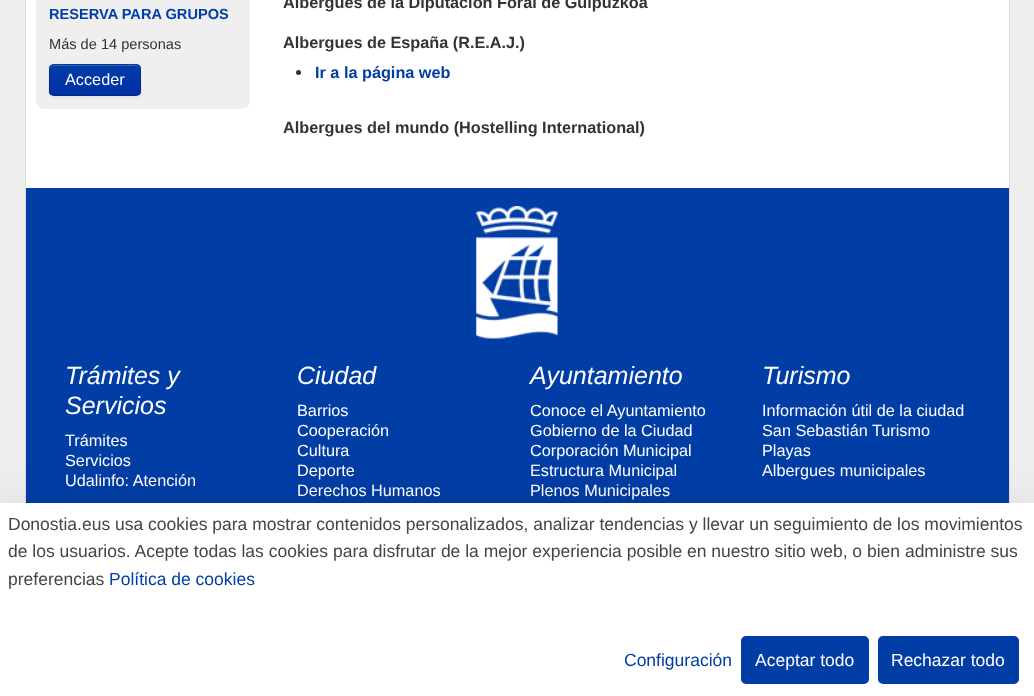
<!DOCTYPE html>
<meta charset="utf-8">
<style>body { margin: 0 } canvas { display: block }</style>
<canvas id="canvas" width="1034" height="696"></canvas>
<script type="module">
  const canvas = document.getElementById("canvas");
  const g = canvas.getContext("2d");
  g.miterLimit = 4;
  g.fontKerning = "normal";
  function drawText(s, x, y, [font, color]) {
    g.font = font;
    g.fillStyle = color;
    g.fillText(s, x, y);
  }
  function fillBox(x, y, w, h, color) {
    g.fillStyle = color;
    g.fillRect(x, y, w, h);
  }
  function fillRounded(x, y, w, h, r, color) {
    g.fillStyle = color;
    g.beginPath();
    g.roundRect(x, y, w, h, r);
    g.fill();
  }
  async function drawPicture(src, x, y, w, h) {
    const img = new Image();
    img.src = src;
    await img.decode();
    g.drawImage(img, x, y, w, h);
  }
  let gradient;

  const s1 = ["bold 14.6px Liberation Sans", "#003DA5"];
  const s2 = ["14.6px Liberation Sans", "#333333"];
  const s3 = ["16.25px Liberation Sans", "#FFFFFF"];
  const s4 = ["bold 16.25px Liberation Sans", "#333333"];
  const s5 = ["bold 16.25px Liberation Sans", "#003DA5"];
  const s6 = ["italic 25px Liberation Sans", "#FFFFFF"];
  const s7 = ["17.5px Liberation Sans", "#444444"];
  const s8 = ["17.5px Liberation Sans", "#003DA5"];
  const s9 = ["17.5px Liberation Sans", "#FFFFFF"];

  fillBox(0, 0, 1034, 696, "#EEEEEE");
  fillBox(26, 0, 983, 188, "#FFFFFF");
  g.strokeStyle = "#DDDDDD";
  g.strokeRect(25.5, -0.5, 984, 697);
  fillRounded(36, -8, 214, 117, 8, "#EFEFEF");
  drawText("RESERVA PARA GRUPOS", 49, 19, s1);
  drawText("Más de 14 personas", 49, 49, s2);
  g.fillStyle = "rgba(0, 0, 0, 0.05)";
  g.filter = "blur(1px)";
  g.beginPath();
  g.roundRect(49, 65, 92, 33, 5);
  g.fill();
  g.filter = "none";
  fillRounded(49, 64, 92, 32, 5, "#0038A5");
  g.save();
  g.beginPath();
  g.roundRect(49, 64, 92, 32, 5);
  g.clip();
  gradient = g.createLinearGradient(95, 65, 95, 95);
  gradient.addColorStop(0, "#003DA5");
  gradient.addColorStop(1, "#002FA5");
  g.fillStyle = gradient;
  g.fillRect(49, 65, 92, 30);
  g.restore();
  g.fillStyle = "rgba(255, 255, 255, 0.2)";
  g.beginPath();
  g.moveTo(54, 66);
  g.lineTo(136, 66);
  g.bezierCurveTo(138, 66, 140, 68, 140, 70);
  g.bezierCurveTo(140, 62, 127, 65, 122, 65);
  g.lineTo(68, 65);
  g.bezierCurveTo(63, 65, 50, 62, 50, 70);
  g.bezierCurveTo(50, 68, 52, 66, 54, 66);
  g.closePath();
  g.fill();
  g.beginPath();
  g.moveTo(139.5, 94.5);
  g.lineTo(136.5, 95.5);
  g.lineTo(53.5, 95.5);
  g.lineTo(50.5, 94.5);
  g.strokeStyle = "rgba(0, 0, 0, 0.25)";
  g.lineWidth = 1.2;
  g.stroke();
  g.beginPath();
  g.moveTo(50.5, 94.5);
  g.bezierCurveTo(48, 92, 49.5, 86.5, 49.5, 84);
  g.bezierCurveTo(49.5, 62.5, 45.5, 64.5, 67.5, 64.5);
  g.lineTo(122.5, 64.5);
  g.bezierCurveTo(142.5, 64.5, 140.5, 61.5, 140.5, 80);
  g.bezierCurveTo(140.5, 83, 142, 92, 139.5, 94.5);
  g.strokeStyle = "rgba(0, 0, 0, 0.1)";
  g.stroke();
  drawText("Acceder", 65, 85, s3);
  drawText("Albergues de la Diputación Foral de Guipuzkoa", 283, 8, s4);
  drawText("Albergues de España (R.E.A.J.)", 283, 48, s4);
  g.beginPath();
  g.arc(298.5, 72.5, 2.5, 0, Math.PI * 2);
  g.fill();
  drawText("Ir a la página web", 315, 78, s5);
  drawText("Albergues del mundo (Hostelling International)", 283, 133, s4);
  fillBox(26, 188, 983, 315, "#003DA5");
  await drawPicture("pic1.png", 476, 206, 82, 133);
  drawText("Trámites y", 65, 384, s6);
  drawText("Servicios", 65, 414, s6);
  drawText("Trámites", 65, 446, s3);
  drawText("Servicios", 65, 466, s3);
  drawText("Udalinfo: Atención", 65, 486, s3);
  drawText("Ciudad", 297, 384, s6);
  drawText("Barrios", 297, 416, s3);
  drawText("Cooperación", 297, 436, s3);
  drawText("Cultura", 297, 456, s3);
  drawText("Deporte", 297, 476, s3);
  drawText("Derechos Humanos", 297, 496, s3);
  drawText("Ayuntamiento", 530, 384, s6);
  drawText("Conoce el Ayuntamiento", 530, 416, s3);
  drawText("Gobierno de la Ciudad", 530, 436, s3);
  drawText("Corporación Municipal", 530, 456, s3);
  drawText("Estructura Municipal", 530, 476, s3);
  drawText("Plenos Municipales", 530, 496, s3);
  drawText("Turismo", 762, 384, s6);
  drawText("Información útil de la ciudad", 762, 416, s3);
  drawText("San Sebastián Turismo", 762, 436, s3);
  drawText("Playas", 762, 456, s3);
  drawText("Albergues municipales", 762, 476, s3);
  g.fillStyle = "rgba(0, 0, 0, 0.18)";
  g.filter = "blur(30px)";
  g.beginPath();
  g.rect(0, 523, 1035, 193);
  g.fill();
  g.filter = "none";
  fillBox(0, 503, 1034, 193, "#FFFFFF");
  drawText("Donostia.eus usa cookies para mostrar contenidos personalizados, analizar tendencias y llevar un seguimiento de los movimientos", 8, 530, s7);
  drawText("de los usuarios. Acepte todas las cookies para disfrutar de la mejor experiencia posible en nuestro sitio web, o bien administre sus", 8, 557, s7);
  drawText("preferencias", 8, 585, s7);
  drawText("Política de cookies", 109, 585, s8);
  drawText("Configuración", 624, 666, s8);
  fillRounded(741, 636, 128, 48, 5, "#003DA5");
  drawText("Aceptar todo", 755, 666, s9);
  fillRounded(878, 636, 141, 48, 5, "#003DA5");
  drawText("Rechazar todo", 891, 666, s9);
</script>
